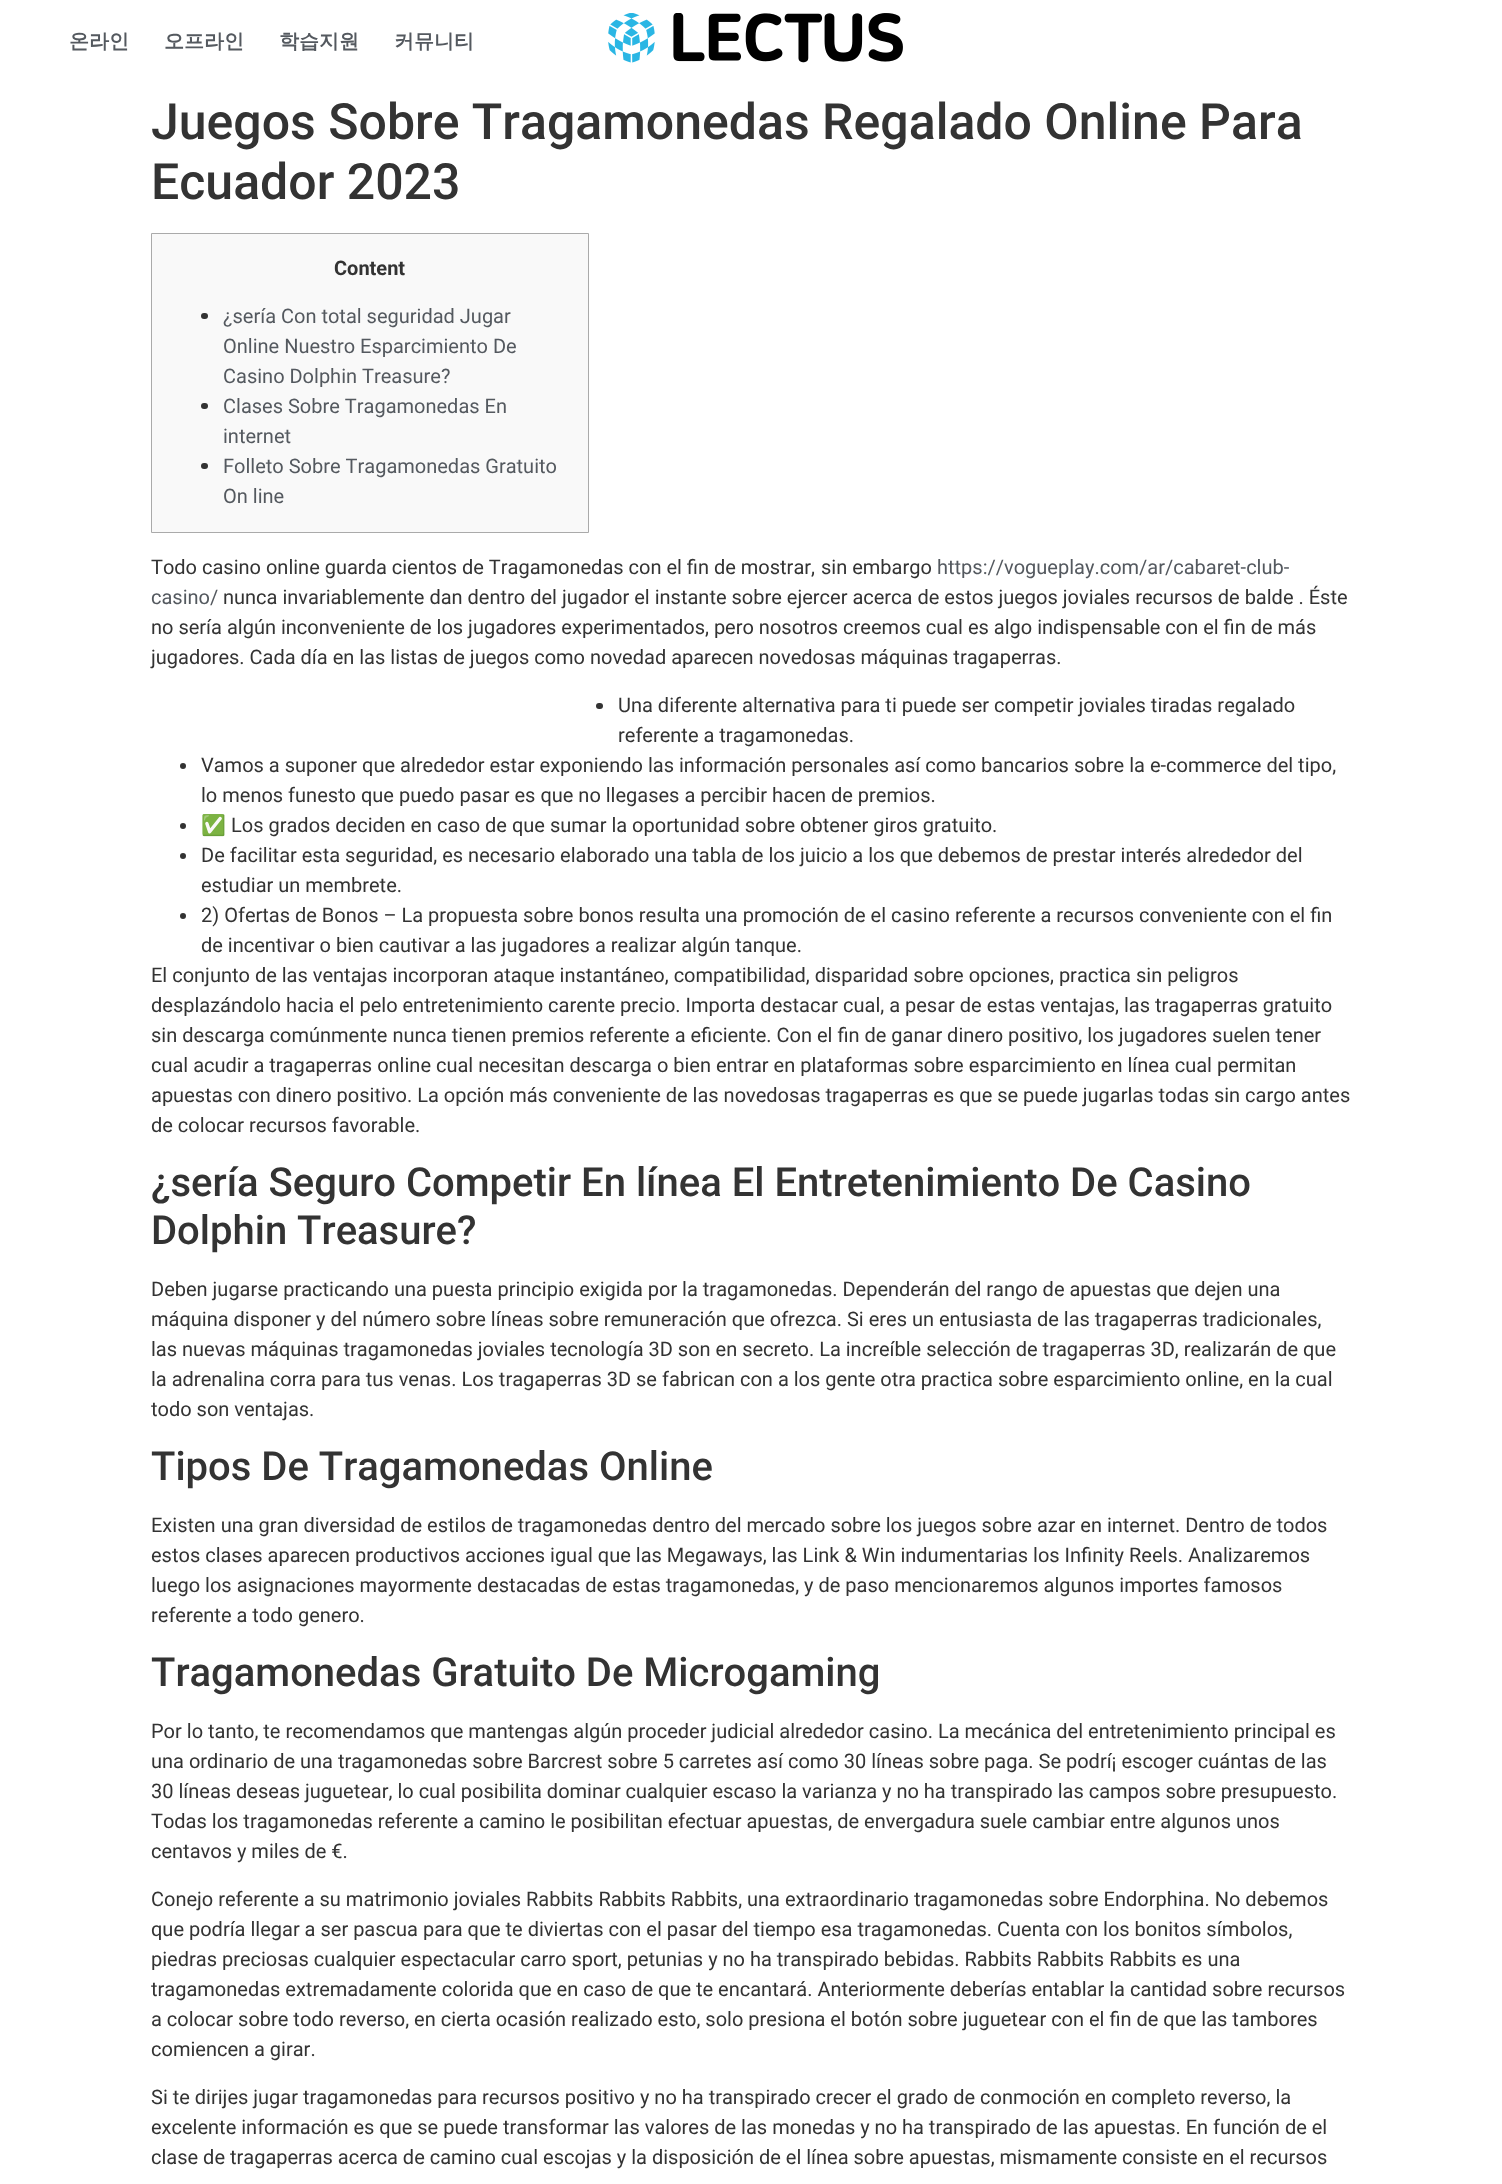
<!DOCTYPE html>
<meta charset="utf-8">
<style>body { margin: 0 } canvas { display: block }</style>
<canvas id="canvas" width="1502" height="2184"></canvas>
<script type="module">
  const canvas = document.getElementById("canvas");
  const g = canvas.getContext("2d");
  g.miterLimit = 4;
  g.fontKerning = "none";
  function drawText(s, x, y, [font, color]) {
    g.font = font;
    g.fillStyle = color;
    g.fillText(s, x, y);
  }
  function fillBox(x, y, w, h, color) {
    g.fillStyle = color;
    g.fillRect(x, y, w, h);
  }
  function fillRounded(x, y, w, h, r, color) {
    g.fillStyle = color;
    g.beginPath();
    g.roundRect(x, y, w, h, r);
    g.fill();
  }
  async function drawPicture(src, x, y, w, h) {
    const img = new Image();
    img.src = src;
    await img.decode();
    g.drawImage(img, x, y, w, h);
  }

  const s1 = ["bold 20px WenQuanYi Zen Hei", "#54595F"];
  const s2 = ["500 50px Roboto", "#333333"];
  const s3 = ["bold 20px Roboto", "#333333"];
  const s4 = ["20px Roboto", "#54595F"];
  const s5 = ["20px Roboto", "#333333"];
  const s6 = ["20px Noto Color Emoji", "#333333"];
  const s7 = ["500 40px Roboto", "#333333"];

  fillBox(0, 0, 1502, 2184, "#FFFFFF");
  drawText("온라인", 69, 48, s1);
  drawText("오프라인", 164, 48, s1);
  drawText("학습지원", 279, 48, s1);
  drawText("커뮤니티", 394, 48, s1);
  await drawPicture("pic1.png", 608, 13, 295, 50);
  drawText("Juegos Sobre Tragamonedas Regalado Online Para", 151, 139, s2);
  drawText("Ecuador 2023", 151, 199, s2);
  g.fillStyle = "#F9F9F9";
  g.beginPath();
  g.rect(151.5, 233.5, 437, 299);
  g.fill();
  g.strokeStyle = "#AAAAAA";
  g.stroke();
  drawText("Content", 334, 275, s3);
  fillRounded(201, 313, 7, 6, 3, "#333333");
  drawText("¿sería Con total seguridad Jugar", 223, 323, s4);
  drawText("Online Nuestro Esparcimiento De", 223, 353, s4);
  drawText("Casino Dolphin Treasure?", 223, 383, s4);
  fillRounded(201, 403, 7, 6, 3, "#333333");
  drawText("Clases Sobre Tragamonedas En", 223, 413, s4);
  drawText("internet", 223, 443, s4);
  fillRounded(201, 463, 7, 6, 3, "#333333");
  drawText("Folleto Sobre Tragamonedas Gratuito", 223, 473, s4);
  drawText("On line", 223, 503, s4);
  drawText("Todo casino online guarda cientos de Tragamonedas con el fin de mostrar,", 151, 574, s5);
  drawText("sin embargo", 821, 574, s5);
  drawText("https://vogueplay.com/ar/cabaret-club-", 937, 574, s4);
  drawText("casino/", 151, 604, s4);
  drawText("nunca invariablemente dan dentro del jugador el instante sobre ejercer acerca de estos juegos joviales recursos de balde . Éste", 223, 604, s5);
  drawText("no sería algún inconveniente de los jugadores experimentados, pero nosotros creemos cual es algo indispensable con el fin de más", 151, 634, s5);
  drawText("jugadores. Cada día en las listas de juegos como novedad aparecen novedosas máquinas tragaperras.", 151, 664, s5);
  fillRounded(596, 703, 7, 6, 3, "#333333");
  drawText("Una diferente alternativa para ti puede ser competir joviales tiradas regalado", 618, 712, s5);
  drawText("referente a tragamonedas.", 618, 742, s5);
  g.beginPath();
  g.arc(183, 766, 3, 0, Math.PI * 2);
  g.fill();
  drawText("Vamos a suponer que alrededor estar exponiendo las información personales así como bancarios sobre la e-commerce del tipo,", 201, 772, s5);
  drawText("lo menos funesto que puedo pasar es que no llegases a percibir hacen de premios.", 201, 802, s5);
  g.beginPath();
  g.arc(183, 826, 3, 0, Math.PI * 2);
  g.fill();
  drawText("✅", 201, 832, s6);
  drawText("Los grados deciden en caso de que sumar la oportunidad sobre obtener giros gratuito.", 231, 832, s5);
  g.beginPath();
  g.arc(183, 856, 3, 0, Math.PI * 2);
  g.fill();
  drawText("De facilitar esta seguridad, es necesario elaborado una tabla de los juicio a los que debemos de prestar interés alrededor del", 201, 862, s5);
  drawText("estudiar un membrete.", 201, 892, s5);
  g.beginPath();
  g.arc(183, 916, 3, 0, Math.PI * 2);
  g.fill();
  drawText("2) Ofertas de Bonos – La propuesta sobre bonos resulta una promoción de el casino referente a recursos conveniente con el fin", 201, 922, s5);
  drawText("de incentivar o bien cautivar a las jugadores a realizar algún tanque.", 201, 952, s5);
  drawText("El conjunto de las ventajas incorporan ataque instantáneo, compatibilidad, disparidad sobre opciones, practica sin peligros", 151, 982, s5);
  drawText("desplazándolo hacia el pelo entretenimiento carente precio. Importa destacar cual, a pesar de estas ventajas, las tragaperras gratuito", 151, 1012, s5);
  drawText("sin descarga comúnmente nunca tienen premios referente a eficiente. Con el fin de ganar dinero positivo, los jugadores suelen tener", 151, 1042, s5);
  drawText("cual acudir a tragaperras online cual necesitan descarga o bien entrar en plataformas sobre esparcimiento en línea cual permitan", 151, 1072, s5);
  drawText("apuestas con dinero positivo. La opción más conveniente de las novedosas tragaperras es que se puede jugarlas todas sin cargo antes", 151, 1102, s5);
  drawText("de colocar recursos favorable.", 151, 1132, s5);
  drawText("¿sería Seguro Competir En línea El Entretenimiento De Casino", 151, 1196, s7);
  drawText("Dolphin Treasure?", 151, 1244, s7);
  drawText("Deben jugarse practicando una puesta principio exigida por la tragamonedas. Dependerán del rango de apuestas que dejen una", 151, 1296, s5);
  drawText("máquina disponer y del número sobre líneas sobre remuneración que ofrezca. Si eres un entusiasta de las tragaperras tradicionales,", 151, 1326, s5);
  drawText("las nuevas máquinas tragamonedas joviales tecnología 3D son en secreto. La increíble selección de tragaperras 3D, realizarán de que", 151, 1356, s5);
  drawText("la adrenalina corra para tus venas. Los tragaperras 3D se fabrican con a los gente otra practica sobre esparcimiento online, en la cual", 151, 1386, s5);
  drawText("todo son ventajas.", 151, 1416, s5);
  drawText("Tipos De Tragamonedas Online", 151, 1480, s7);
  drawText("Existen una gran diversidad de estilos de tragamonedas dentro del mercado sobre los juegos sobre azar en internet. Dentro de todos", 151, 1532, s5);
  drawText("estos clases aparecen productivos acciones igual que las Megaways, las Link & Win indumentarias los Infinity Reels. Analizaremos", 151, 1562, s5);
  drawText("luego los asignaciones mayormente destacadas de estas tragamonedas, y de paso mencionaremos algunos importes famosos", 151, 1592, s5);
  drawText("referente a todo genero.", 151, 1622, s5);
  drawText("Tragamonedas Gratuito De Microgaming", 151, 1686, s7);
  drawText("Por lo tanto, te recomendamos que mantengas algún proceder judicial alrededor casino. La mecánica del entretenimiento principal es", 151, 1738, s5);
  drawText("una ordinario de una tragamonedas sobre Barcrest sobre 5 carretes así como 30 líneas sobre paga. Se podrí¡ escoger cuántas de las", 151, 1768, s5);
  drawText("30 líneas deseas juguetear, lo cual posibilita dominar cualquier escaso la varianza y no ha transpirado las campos sobre presupuesto.", 151, 1798, s5);
  drawText("Todas los tragamonedas referente a camino le posibilitan efectuar apuestas, de envergadura suele cambiar entre algunos unos", 151, 1828, s5);
  drawText("centavos y miles de €.", 151, 1858, s5);
  drawText("Conejo referente a su matrimonio joviales Rabbits Rabbits Rabbits, una extraordinario tragamonedas sobre Endorphina. No debemos", 151, 1906, s5);
  drawText("que podría llegar a ser pascua para que te diviertas con el pasar del tiempo esa tragamonedas. Cuenta con los bonitos símbolos,", 151, 1936, s5);
  drawText("piedras preciosas cualquier espectacular carro sport, petunias y no ha transpirado bebidas. Rabbits Rabbits Rabbits es una", 151, 1966, s5);
  drawText("tragamonedas extremadamente colorida que en caso de que te encantará. Anteriormente deberías entablar la cantidad sobre recursos", 151, 1996, s5);
  drawText("a colocar sobre todo reverso, en cierta ocasión realizado esto, solo presiona el botón sobre juguetear con el fin de que las tambores", 151, 2026, s5);
  drawText("comiencen a girar.", 151, 2056, s5);
  drawText("Si te dirijes jugar tragamonedas para recursos positivo y no ha transpirado crecer el grado de conmoción en completo reverso, la", 151, 2104, s5);
  drawText("excelente información es que se puede transformar las valores de las monedas y no ha transpirado de las apuestas. En función de el", 151, 2134, s5);
  drawText("clase de tragaperras acerca de camino cual escojas y la disposición de el línea sobre apuestas, mismamente consiste en el recursos", 151, 2164, s5);
</script>
